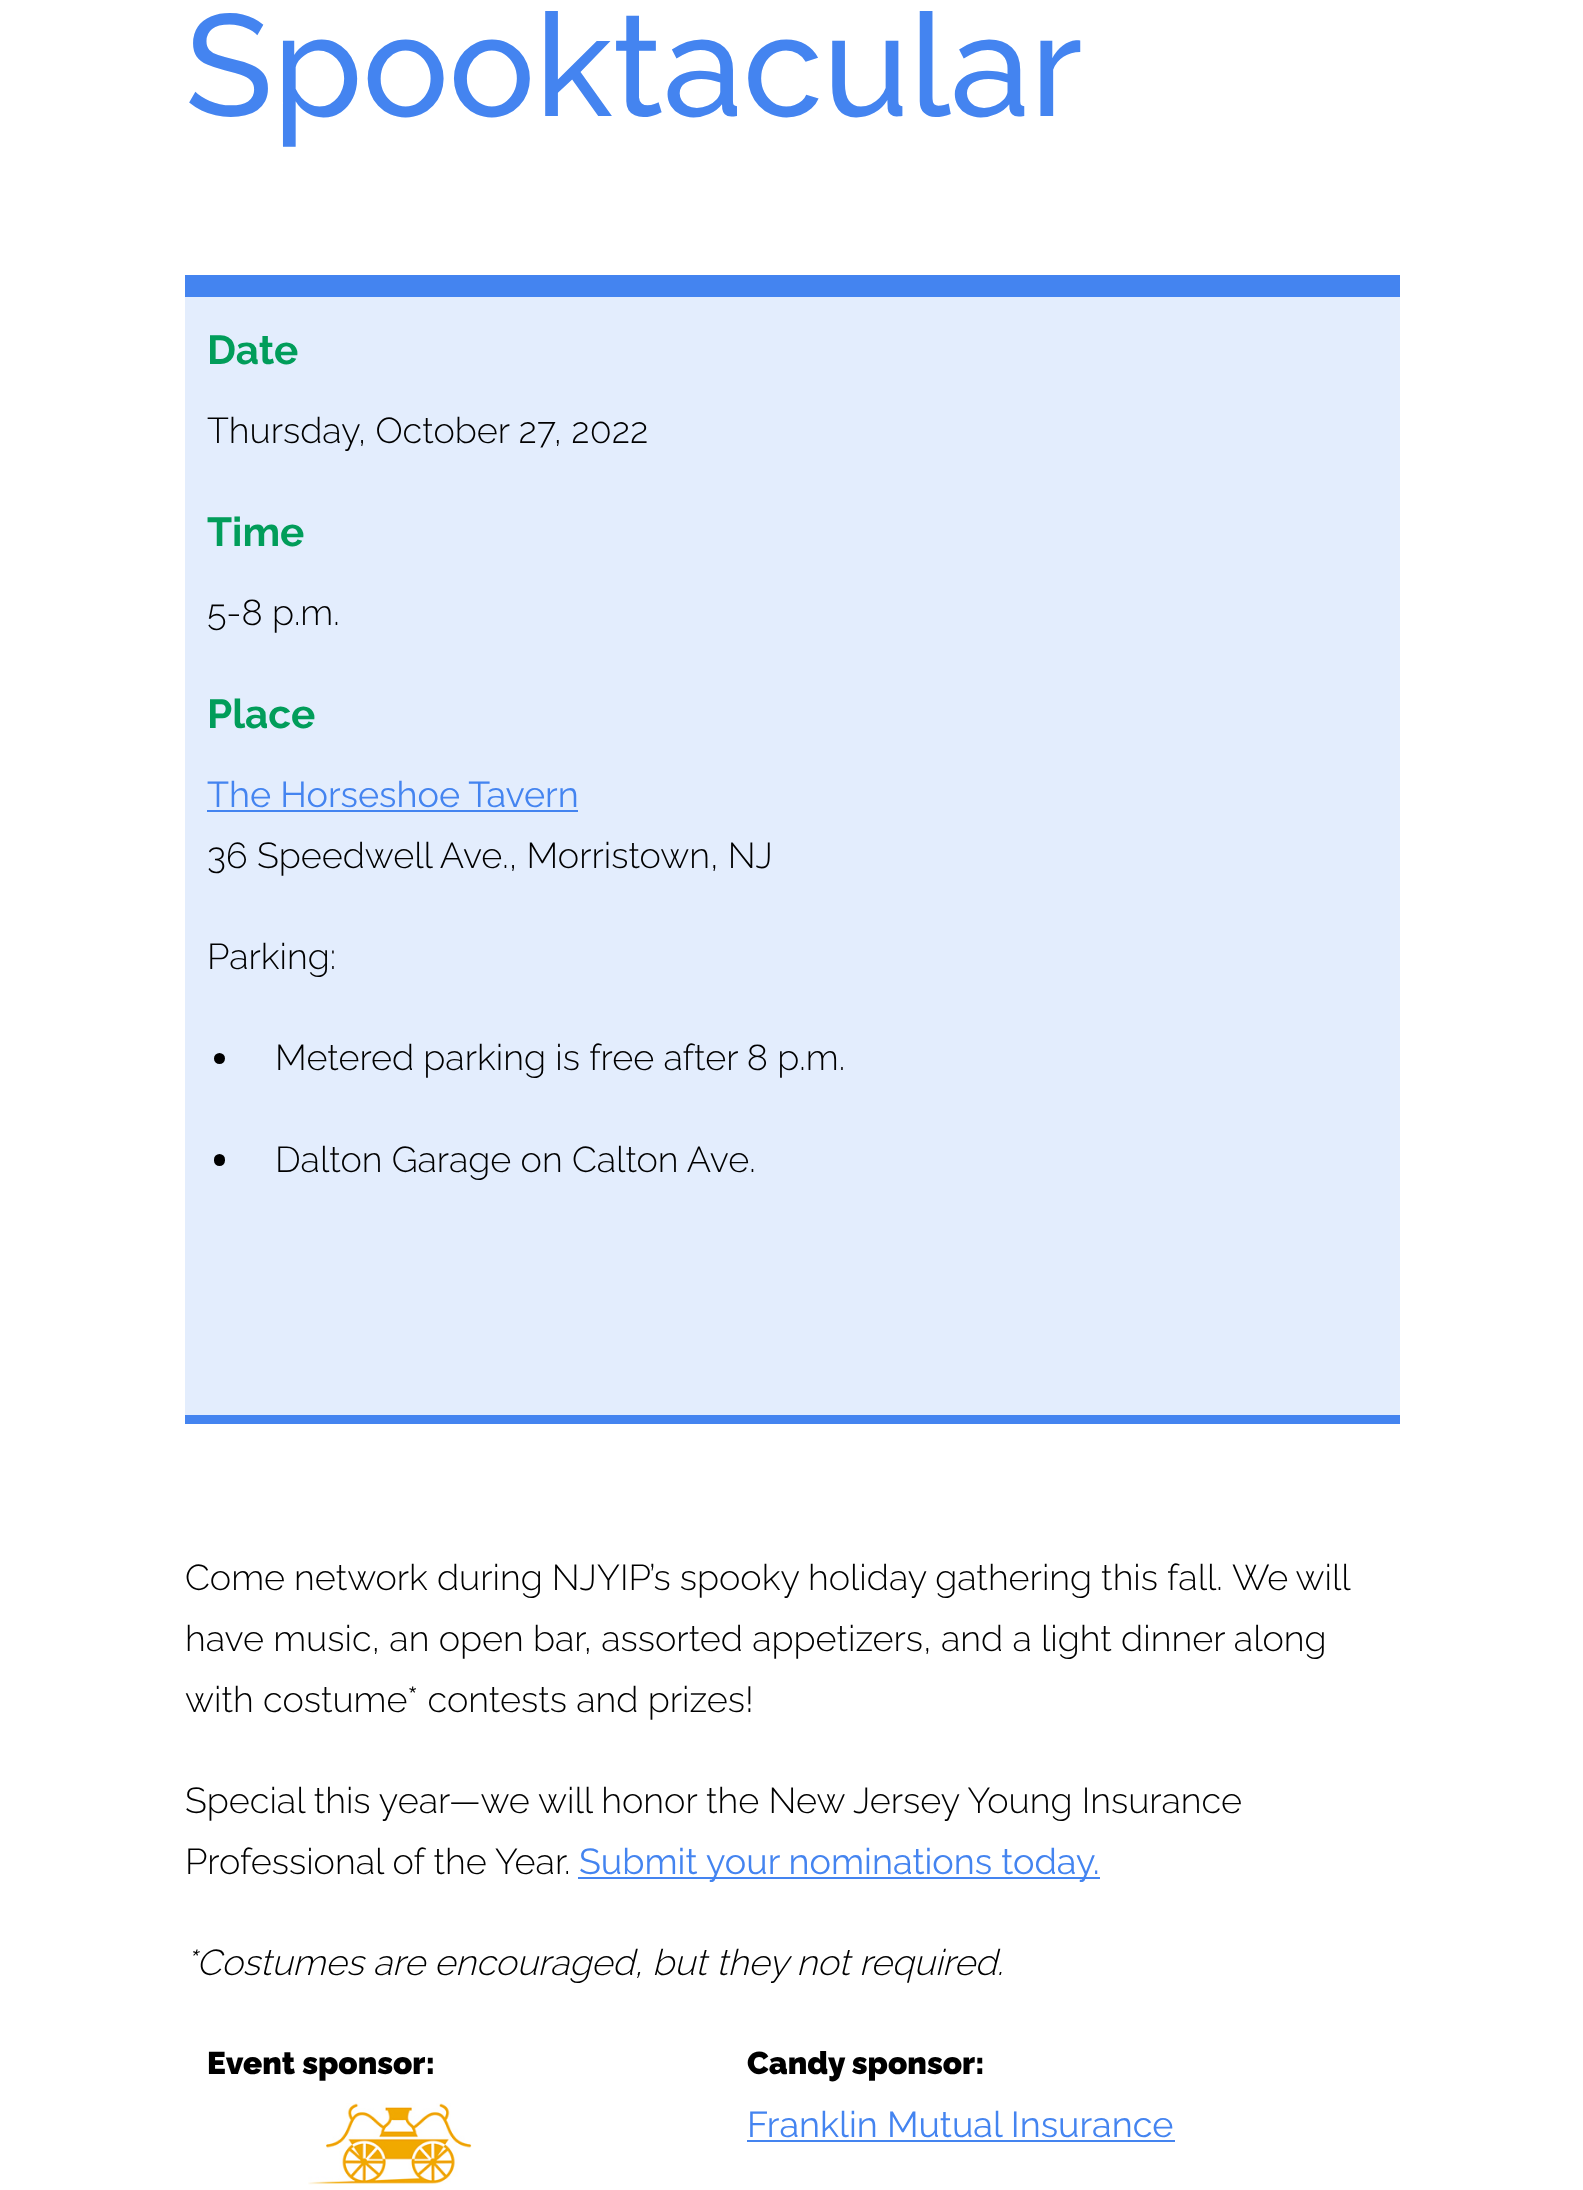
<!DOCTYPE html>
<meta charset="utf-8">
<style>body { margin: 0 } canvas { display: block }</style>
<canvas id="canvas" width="1583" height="2190"></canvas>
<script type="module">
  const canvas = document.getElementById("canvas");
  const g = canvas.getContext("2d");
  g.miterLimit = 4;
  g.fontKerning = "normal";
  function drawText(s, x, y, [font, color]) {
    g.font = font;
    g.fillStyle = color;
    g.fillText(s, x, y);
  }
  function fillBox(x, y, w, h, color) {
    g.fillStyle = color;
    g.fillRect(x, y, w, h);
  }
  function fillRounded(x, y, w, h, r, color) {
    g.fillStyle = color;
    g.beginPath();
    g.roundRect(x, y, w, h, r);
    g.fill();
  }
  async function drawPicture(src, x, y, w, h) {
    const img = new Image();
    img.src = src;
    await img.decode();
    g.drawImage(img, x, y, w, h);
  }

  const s1 = ["500 144px Raleway", "#4484F0"];
  const s2 = ["bold 40.5px Raleway", "#019D5A"];
  const s3 = ["300 36px Raleway", "#000000"];
  const s4 = ["36px Raleway", "#4484F0"];
  const s5 = ["italic 300 36px Raleway", "#000000"];
  const s6 = ["900 31.5px Raleway", "#000000"];

  fillBox(0, 0, 1583, 2190, "#FFFFFF");
  drawText("Spooktacular", 185, 116, s1);
  fillBox(185, 297, 1215, 1118, "#E3EDFD");
  fillBox(185, 275, 1215, 22, "#4484F0");
  fillBox(185, 1415, 1215, 9, "#4484F0");
  drawText("Date", 207, 364, s2);
  drawText("Thursday, October 27, 2022", 207, 443, s3);
  drawText("Time", 207, 546, s2);
  drawText("5-8 p.m.", 207, 625, s3);
  drawText("Place", 207, 728, s2);
  drawText("The Horseshoe Tavern", 207, 807, s4);
  fillBox(207, 810, 371, 2, "#4484F0");
  drawText("36 Speedwell Ave., Morristown, NJ", 207, 868, s3);
  drawText("Parking:", 207, 969, s3);
  g.beginPath();
  g.arc(219.5, 1058.5, 5.5, 0, Math.PI * 2);
  g.fill();
  drawText("Metered parking is free after 8 p.m.", 275, 1070, s3);
  fillRounded(214, 1154, 11, 12, 5.5, "#000000");
  drawText("Dalton Garage on Calton Ave.", 275, 1172, s3);
  g.wordSpacing = "-0.25px";
  drawText("Come network during NJYIP’s spooky holiday gathering this fall.", 185, 1590, s3);
  g.wordSpacing = "-1px";
  drawText("We will", 1232, 1590, s3);
  g.wordSpacing = "0px";
  drawText("have music, an open bar, assorted appetizers, and a light dinner along", 185, 1651, s3);
  drawText("with costume* contests and prizes!", 185, 1712, s3);
  drawText("Special this year—we will honor the New Jersey Young Insurance", 185, 1813, s3);
  drawText("Professional of the Year.", 185, 1874, s3);
  drawText("Submit", 579, 1874, s4);
  fillBox(578, 1877, 522, 2, "#4484F0");
  drawText("your nominations today.", 706, 1874, s4);
  drawText("*Costumes are encouraged, but they not required.", 185, 1975, s5);
  drawText("Event sponsor:", 207, 2074, s6);
  await drawPicture("pic1.png", 308, 2103, 164, 82);
  drawText("Candy sponsor:", 747, 2074, s6);
  drawText("Franklin Mutual Insurance", 747, 2137, s4);
  fillBox(747, 2140, 428, 2, "#4484F0");
</script>
